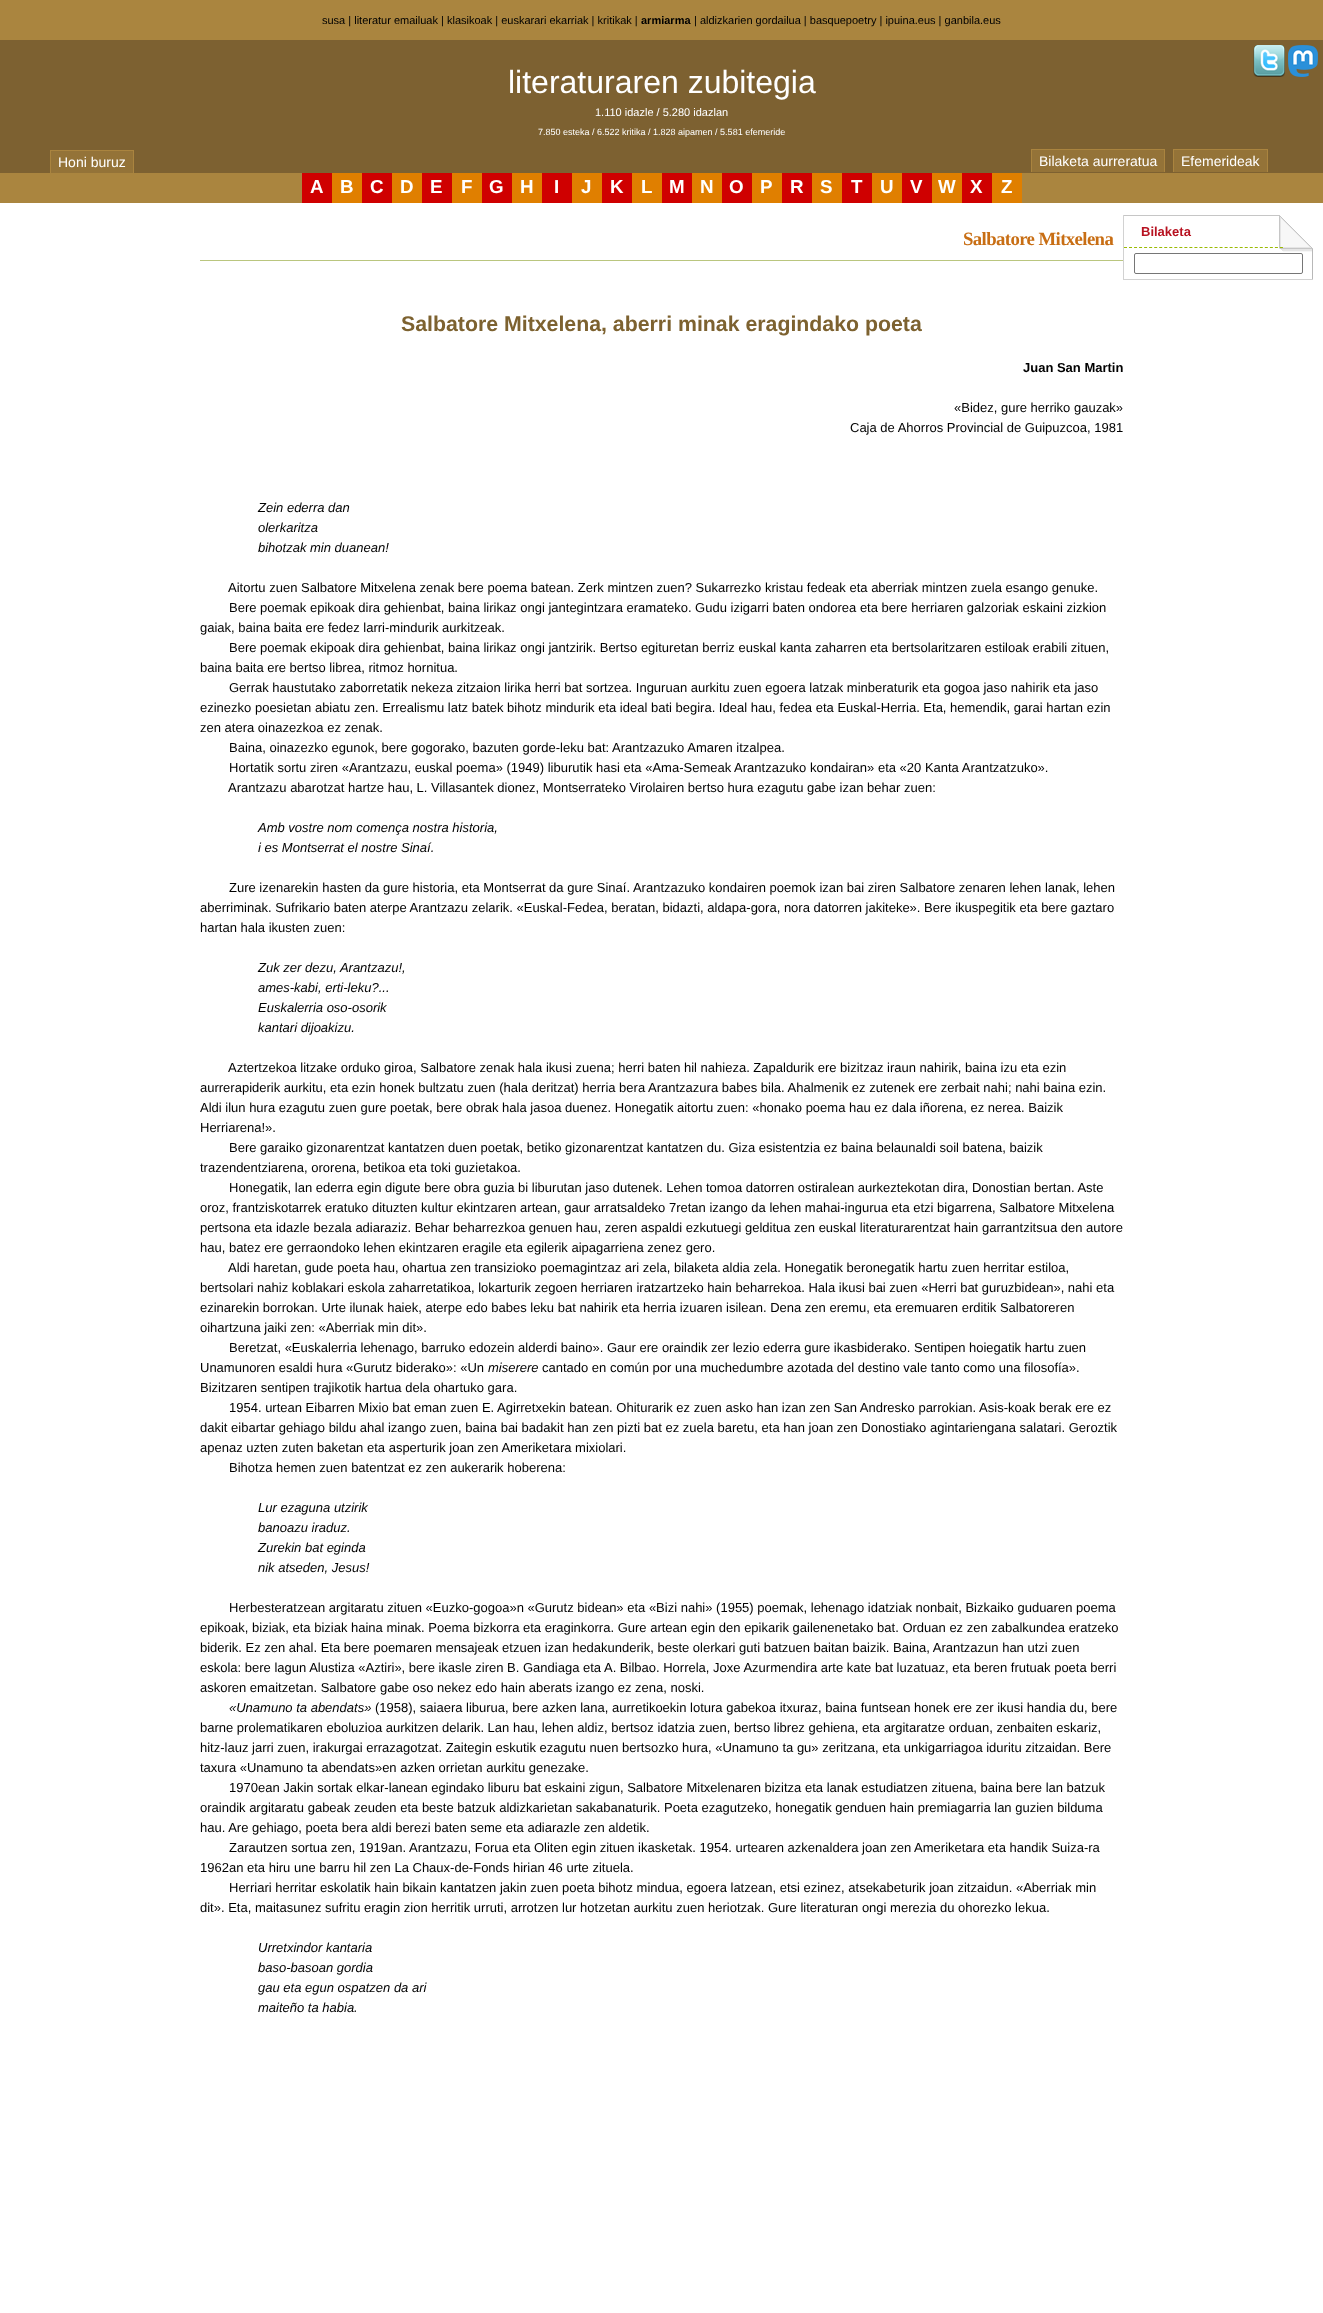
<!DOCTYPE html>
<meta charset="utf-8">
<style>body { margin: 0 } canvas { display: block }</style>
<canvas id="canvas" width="1323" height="2313"></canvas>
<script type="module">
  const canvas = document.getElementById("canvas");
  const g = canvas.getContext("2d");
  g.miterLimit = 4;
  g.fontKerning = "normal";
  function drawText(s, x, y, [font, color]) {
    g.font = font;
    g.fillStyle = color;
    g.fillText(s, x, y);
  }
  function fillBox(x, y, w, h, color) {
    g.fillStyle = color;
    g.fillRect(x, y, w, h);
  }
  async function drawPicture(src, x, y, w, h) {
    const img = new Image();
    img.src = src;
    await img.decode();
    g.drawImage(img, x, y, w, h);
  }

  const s1 = ["11px Liberation Sans", "#000000"];
  const s2 = ["bold 11px Liberation Sans", "#000000"];
  const s3 = ["32px Liberation Sans", "#FFFFFF"];
  const s4 = ["11px Liberation Sans", "#FFFFFF"];
  const s5 = ["9px Liberation Sans", "#FFFFFF"];
  const s6 = ["14px Liberation Sans", "#FFFFFF"];
  const s7 = ["bold 18.75px Liberation Sans", "#FFFFFF"];
  const s8 = ["bold 18.75px Liberation Serif", "#C86E14"];
  const s9 = ["bold 21.3px Liberation Sans", "#7D6230"];
  const s10 = ["bold 13px Liberation Sans", "#000000"];
  const s11 = ["13px Liberation Sans", "#000000"];
  const s12 = ["italic 13px Liberation Sans", "#000000"];
  const s13 = ["bold 13px Liberation Sans", "#B71221"];

  fillBox(0, 0, 1323, 2313, "#FFFFFF");
  fillBox(0, 0, 1323, 40, "#AA853F");
  drawText("susa | literatur emailuak | klasikoak | euskarari ekarriak | kritikak |", 322, 24, s1);
  drawText("armiarma", 641, 24, s2);
  drawText("| aldizkarien gordailua | basquepoetry | ipuina.eus | ganbila.eus", 694, 24, s1);
  fillBox(0, 40, 1323, 133, "#7D6131");
  await drawPicture("pic1.png", 1253, 45, 32, 32);
  await drawPicture("pic2.png", 1288, 45, 30, 32);
  drawText("literaturaren zubitegia", 508, 93, s3);
  drawText("1.110 idazle / 5.280 idazlan", 595, 116, s4);
  drawText("7.850 esteka / 6.522 kritika / 1.828 aipamen / 5.581 efemeride", 538, 135, s5);
  fillBox(51, 151, 82, 22, "#947338");
  drawText("Honi buruz", 58, 167, s6);
  fillBox(50, 150, 84, 1, "#AA843F");
  fillBox(133, 150, 1, 23, "#AA843F");
  fillBox(50, 150, 1, 23, "#AA843F");
  fillBox(1032, 150, 132, 22, "#947338");
  drawText("Bilaketa aurreratua", 1039, 166, s6);
  fillBox(1031, 149, 134, 1, "#AA843F");
  fillBox(1164, 149, 1, 23, "#AA843F");
  fillBox(1031, 149, 1, 23, "#AA843F");
  fillBox(1174, 150, 93, 22, "#947338");
  drawText("Efemerideak", 1181, 166, s6);
  fillBox(1173, 149, 95, 1, "#AA843F");
  fillBox(1267, 149, 1, 23, "#AA843F");
  fillBox(1173, 149, 1, 23, "#AA843F");
  fillBox(0, 173, 1323, 30, "#AA853F");
  fillBox(302, 173, 30, 30, "#CF0000");
  drawText("A", 310, 193, s7);
  fillBox(332, 173, 30, 30, "#E07F00");
  drawText("B", 340, 193, s7);
  fillBox(362, 173, 30, 30, "#CF0000");
  drawText("C", 370, 193, s7);
  fillBox(392, 173, 30, 30, "#E07F00");
  drawText("D", 400, 193, s7);
  fillBox(422, 173, 30, 30, "#CF0000");
  drawText("E", 430, 193, s7);
  fillBox(452, 173, 30, 30, "#E07F00");
  drawText("F", 461, 193, s7);
  fillBox(482, 173, 30, 30, "#CF0000");
  drawText("G", 489, 193, s7);
  fillBox(512, 173, 30, 30, "#E07F00");
  drawText("H", 520, 193, s7);
  fillBox(542, 173, 30, 30, "#CF0000");
  drawText("I", 554, 193, s7);
  fillBox(572, 173, 30, 30, "#E07F00");
  drawText("J", 581, 193, s7);
  fillBox(602, 173, 30, 30, "#CF0000");
  drawText("K", 610, 193, s7);
  fillBox(632, 173, 30, 30, "#E07F00");
  drawText("L", 641, 193, s7);
  fillBox(662, 173, 30, 30, "#CF0000");
  drawText("M", 669, 193, s7);
  fillBox(692, 173, 30, 30, "#E07F00");
  drawText("N", 700, 193, s7);
  fillBox(722, 173, 30, 30, "#CF0000");
  drawText("O", 729, 193, s7);
  fillBox(752, 173, 30, 30, "#E07F00");
  drawText("P", 760, 193, s7);
  fillBox(782, 173, 30, 30, "#CF0000");
  drawText("R", 790, 193, s7);
  fillBox(812, 173, 30, 30, "#E07F00");
  drawText("S", 820, 193, s7);
  fillBox(842, 173, 30, 30, "#CF0000");
  drawText("T", 851, 193, s7);
  fillBox(872, 173, 30, 30, "#E07F00");
  drawText("U", 880, 193, s7);
  fillBox(902, 173, 30, 30, "#CF0000");
  drawText("V", 910, 193, s7);
  fillBox(932, 173, 30, 30, "#E07F00");
  drawText("W", 938, 193, s7);
  fillBox(962, 173, 30, 30, "#CF0000");
  drawText("X", 970, 193, s7);
  fillBox(992, 173, 30, 30, "#E07F00");
  drawText("Z", 1001, 193, s7);
  fillBox(200, 260, 923, 1, "#BAC67F");
  g.letterSpacing = "-0.6px";
  drawText("Salbatore Mitxelena", 963, 245, s8);
  g.letterSpacing = "0px";
  drawText("Salbatore Mitxelena, aberri minak eragindako poeta", 401, 331, s9);
  drawText("Juan San Martin", 1023, 372, s10);
  drawText("«Bidez, gure herriko gauzak»", 954, 412, s11);
  drawText("Caja de Ahorros Provincial de Guipuzcoa, 1981", 850, 432, s11);
  drawText("Zein ederra dan", 258, 512, s12);
  drawText("olerkaritza", 258, 532, s12);
  drawText("bihotzak min duanean!", 258, 552, s12);
  drawText("Aitortu zuen Salbatore Mitxelena zenak bere poema batean. Zerk mintzen zuen? Sukarrezko kristau fedeak eta aberriak mintzen zuela esango genuke.", 228, 592, s11);
  drawText("Bere poemak epikoak dira gehienbat, baina lirikaz ongi jantegintzara eramateko. Gudu izigarri baten ondorea eta bere herriaren galzoriak eskaini zizkion", 229, 612, s11);
  drawText("gaiak, baina baita ere fedez larri-mindurik aurkitzeak.", 200, 632, s11);
  drawText("Bere poemak ekipoak dira gehienbat, baina lirikaz ongi jantzirik. Bertso egituretan berriz euskal kanta zaharren eta bertsolaritzaren estiloak erabili zituen,", 229, 652, s11);
  drawText("baina baita ere bertso librea, ritmoz hornitua.", 200, 672, s11);
  drawText("Gerrak haustutako zaborretatik nekeza zitzaion lirika herri bat sortzea. Inguruan aurkitu zuen egoera latzak minberaturik eta gogoa jaso nahirik eta jaso", 229, 692, s11);
  drawText("ezinezko poesietan abiatu zen. Errealismu latz batek bihotz mindurik eta ideal bati begira. Ideal hau, fedea eta Euskal-Herria. Eta, hemendik, garai hartan ezin", 200, 712, s11);
  drawText("zen atera oinazezkoa ez zenak.", 200, 732, s11);
  drawText("Baina, oinazezko egunok, bere gogorako, bazuten gorde-leku bat: Arantzazuko Amaren itzalpea.", 229, 752, s11);
  drawText("Hortatik sortu ziren «Arantzazu, euskal poema» (1949) liburutik hasi eta «Ama-Semeak Arantzazuko kondairan» eta «20 Kanta Arantzatzuko».", 229, 772, s11);
  drawText("Arantzazu abarotzat hartze hau, L. Villasantek dionez, Montserrateko Virolairen bertso hura ezagutu gabe izan behar zuen:", 228, 792, s11);
  drawText("Amb vostre nom comença nostra historia,", 258, 832, s12);
  drawText("i es Montserrat el nostre Sinaí.", 258, 852, s12);
  drawText("Zure izenarekin hasten da gure historia, eta Montserrat da gure Sinaí. Arantzazuko kondairen poemok izan bai ziren Salbatore zenaren lehen lanak, lehen", 229, 892, s11);
  drawText("aberriminak. Sufrikario baten aterpe Arantzazu zelarik. «Euskal-Fedea, beratan, bidazti, aldapa-gora, nora datorren jakiteke». Bere ikuspegitik eta bere gaztaro", 200, 912, s11);
  drawText("hartan hala ikusten zuen:", 200, 932, s11);
  drawText("Zuk zer dezu, Arantzazu!,", 258, 972, s12);
  drawText("ames-kabi, erti-leku?...", 258, 992, s12);
  drawText("Euskalerria oso-osorik", 258, 1012, s12);
  drawText("kantari dijoakizu.", 258, 1032, s12);
  drawText("Aztertzekoa litzake orduko giroa, Salbatore zenak hala ikusi zuena; herri baten hil nahieza. Zapaldurik ere bizitzaz iraun nahirik, baina izu eta ezin", 228, 1072, s11);
  drawText("aurrerapiderik aurkitu, eta ezin honek bultzatu zuen (hala deritzat) herria bera Arantzazura babes bila. Ahalmenik ez zutenek ere zerbait nahi; nahi baina ezin.", 200, 1092, s11);
  drawText("Aldi ilun hura ezagutu zuen gure poetak, bere obrak hala jasoa duenez. Honegatik aitortu zuen: «honako poema hau ez dala iñorena, ez nerea. Baizik", 200, 1112, s11);
  drawText("Herriarena!».", 200, 1132, s11);
  drawText("Bere garaiko gizonarentzat kantatzen duen poetak, betiko gizonarentzat kantatzen du. Giza esistentzia ez baina belaunaldi soil batena, baizik", 229, 1152, s11);
  drawText("trazendentziarena, ororena, betikoa eta toki guzietakoa.", 200, 1172, s11);
  drawText("Honegatik, lan ederra egin digute bere obra guzia bi liburutan jaso dutenek. Lehen tomoa datorren ostiralean aurkeztekotan dira, Donostian bertan. Aste", 229, 1192, s11);
  drawText("oroz, frantziskotarrek eratuko dituzten kultur ekintzaren artean, gaur arratsaldeko 7retan izango da lehen mahai-ingurua eta etzi bigarrena, Salbatore Mitxelena", 200, 1212, s11);
  drawText("pertsona eta idazle bezala adiaraziz. Behar beharrezkoa genuen hau, zeren aspaldi ezkutuegi gelditua zen euskal literaturarentzat hain garrantzitsua den autore", 200, 1232, s11);
  drawText("hau, batez ere gerraondoko lehen ekintzaren eragile eta egilerik aipagarriena zenez gero.", 200, 1252, s11);
  drawText("Aldi haretan, gude poeta hau, ohartua zen transizioko poemagintzaz ari zela, bilaketa aldia zela. Honegatik beronegatik hartu zuen herritar estiloa,", 228, 1272, s11);
  drawText("bertsolari nahiz koblakari eskola zaharretatikoa, lokarturik zegoen herriaren iratzartzeko hain beharrekoa. Hala ikusi bai zuen «Herri bat guruzbidean», nahi eta", 200, 1292, s11);
  drawText("ezinarekin borrokan. Urte ilunak haiek, aterpe edo babes leku bat nahirik eta herria izuaren isilean. Dena zen eremu, eta eremuaren erditik Salbatoreren", 200, 1312, s11);
  drawText("oihartzuna jaiki zen: «Aberriak min dit».", 200, 1332, s11);
  drawText("Beretzat, «Euskalerria lehenago, barruko edozein alderdi baino». Gaur ere oraindik zer lezio ederra gure ikasbiderako. Sentipen hoiegatik hartu zuen", 229, 1352, s11);
  drawText("Unamunoren esaldi hura «Gurutz biderako»: «Un", 200, 1372, s11);
  drawText("miserere", 488, 1372, s12);
  drawText("cantado en común por una muchedumbre azotada del destino vale tanto como una filosofía».", 542, 1372, s11);
  drawText("Bizitzaren sentipen trajikotik hartua dela ohartuko gara.", 200, 1392, s11);
  drawText("1954. urtean Eibarren Mixio bat eman zuen E. Agirretxekin batean. Ohiturarik ez zuen asko han izan zen San Andresko parrokian. Asis-koak berak ere ez", 229, 1412, s11);
  drawText("dakit eibartar gehiago bildu ahal izango zuen, baina bai badakit han zen pizti bat ez zuela baretu, eta han joan zen Donostiako agintariengana salatari. Geroztik", 200, 1432, s11);
  drawText("apenaz uzten zuten baketan eta asperturik joan zen Ameriketara mixiolari.", 200, 1452, s11);
  drawText("Bihotza hemen zuen batentzat ez zen aukerarik hoberena:", 229, 1472, s11);
  drawText("Lur ezaguna utzirik", 258, 1512, s12);
  drawText("banoazu iraduz.", 258, 1532, s12);
  drawText("Zurekin bat eginda", 258, 1552, s12);
  drawText("nik atseden, Jesus!", 258, 1572, s12);
  drawText("Herbesteratzean argitaratu zituen «Euzko-gogoa»n «Gurutz bidean» eta «Bizi nahi» (1955) poemak, lehenago idatziak nonbait, Bizkaiko guduaren poema", 229, 1612, s11);
  drawText("epikoak, biziak, eta biziak haina minak. Poema bizkorra eta eraginkorra. Gure artean egin den epikarik gailenenetako bat. Orduan ez zen zabalkundea eratzeko", 200, 1632, s11);
  drawText("biderik. Ez zen ahal. Eta bere poemaren mensajeak etzuen izan hedakunderik, beste olerkari guti batzuen baitan baizik. Baina, Arantzazun han utzi zuen", 200, 1652, s11);
  drawText("eskola: bere lagun Alustiza «Aztiri», bere ikasle ziren B. Gandiaga eta A. Bilbao. Horrela, Joxe Azurmendira arte kate bat luzatuaz, eta beren frutuak poeta berri", 200, 1672, s11);
  drawText("askoren emaitzetan. Salbatore gabe oso nekez edo hain aberats izango ez zena, noski.", 200, 1692, s11);
  drawText("«Unamuno ta abendats»", 229, 1712, s12);
  drawText("(1958), saiaera liburua, bere azken lana, aurretikoekin lotura gabekoa itxuraz, baina funtsean honek ere zer ikusi handia du, bere", 375, 1712, s11);
  drawText("barne prolematikaren eboluzioa aurkitzen delarik. Lan hau, lehen aldiz, bertsoz idatzia zuen, bertso librez gehiena, eta argitaratze orduan, zenbaiten eskariz,", 200, 1732, s11);
  drawText("hitz-lauz jarri zuen, irakurgai errazagotzat. Zaitegin eskutik ezagutu nuen bertsozko hura, «Unamuno ta gu» zeritzana, eta unkigarriagoa iduritu zitzaidan. Bere", 200, 1752, s11);
  drawText("taxura «Unamuno ta abendats»en azken orrietan aurkitu genezake.", 200, 1772, s11);
  drawText("1970ean Jakin sortak elkar-lanean egindako liburu bat eskaini zigun, Salbatore Mitxelenaren bizitza eta lanak estudiatzen zituena, baina bere lan batzuk", 229, 1792, s11);
  drawText("oraindik argitaratu gabeak zeuden eta beste batzuk aldizkarietan sakabanaturik. Poeta ezagutzeko, honegatik genduen hain premiagarria lan guzien bilduma", 200, 1812, s11);
  drawText("hau. Are gehiago, poeta bera aldi berezi baten seme eta adiarazle zen aldetik.", 200, 1832, s11);
  drawText("Zarautzen sortua zen, 1919an. Arantzazu, Forua eta Oliten egin zituen ikasketak. 1954. urtearen azkenaldera joan zen Ameriketara eta handik Suiza-ra", 229, 1852, s11);
  drawText("1962an eta hiru une barru hil zen La Chaux-de-Fonds hirian 46 urte zituela.", 200, 1872, s11);
  drawText("Herriari herritar eskolatik hain bikain kantatzen jakin zuen poeta bihotz mindua, egoera latzean, etsi ezinez, atsekabeturik joan zitzaidun. «Aberriak min", 229, 1892, s11);
  drawText("dit». Eta, maitasunez sufritu eragin zion herritik urruti, arrotzen lur hotzetan aurkitu zuen heriotzak. Gure literaturan ongi merezia du ohorezko lekua.", 200, 1912, s11);
  drawText("Urretxindor kantaria", 258, 1952, s12);
  drawText("baso-basoan gordia", 258, 1972, s12);
  drawText("gau eta egun ospatzen da ari", 258, 1992, s12);
  drawText("maiteño ta habia.", 258, 2012, s12);
  await drawPicture("pic3.png", 1124, 215, 189, 64);
  fillBox(1123, 279, 190, 1, "#D2D2D2");
  fillBox(1123, 215, 1, 65, "#D2D2D2");
  g.beginPath();
  g.moveTo(1124, 247.5);
  g.lineTo(1283, 247.5);
  g.strokeStyle = "#9ABA03";
  g.setLineDash([3, 2.03]);
  g.stroke();
  drawText("Bilaketa", 1141, 236, s13);
  g.beginPath();
  g.roundRect(1134.5, 253.5, 168, 20, 1.5);
  g.strokeStyle = "#767676";
  g.setLineDash([]);
  g.stroke();
</script>
